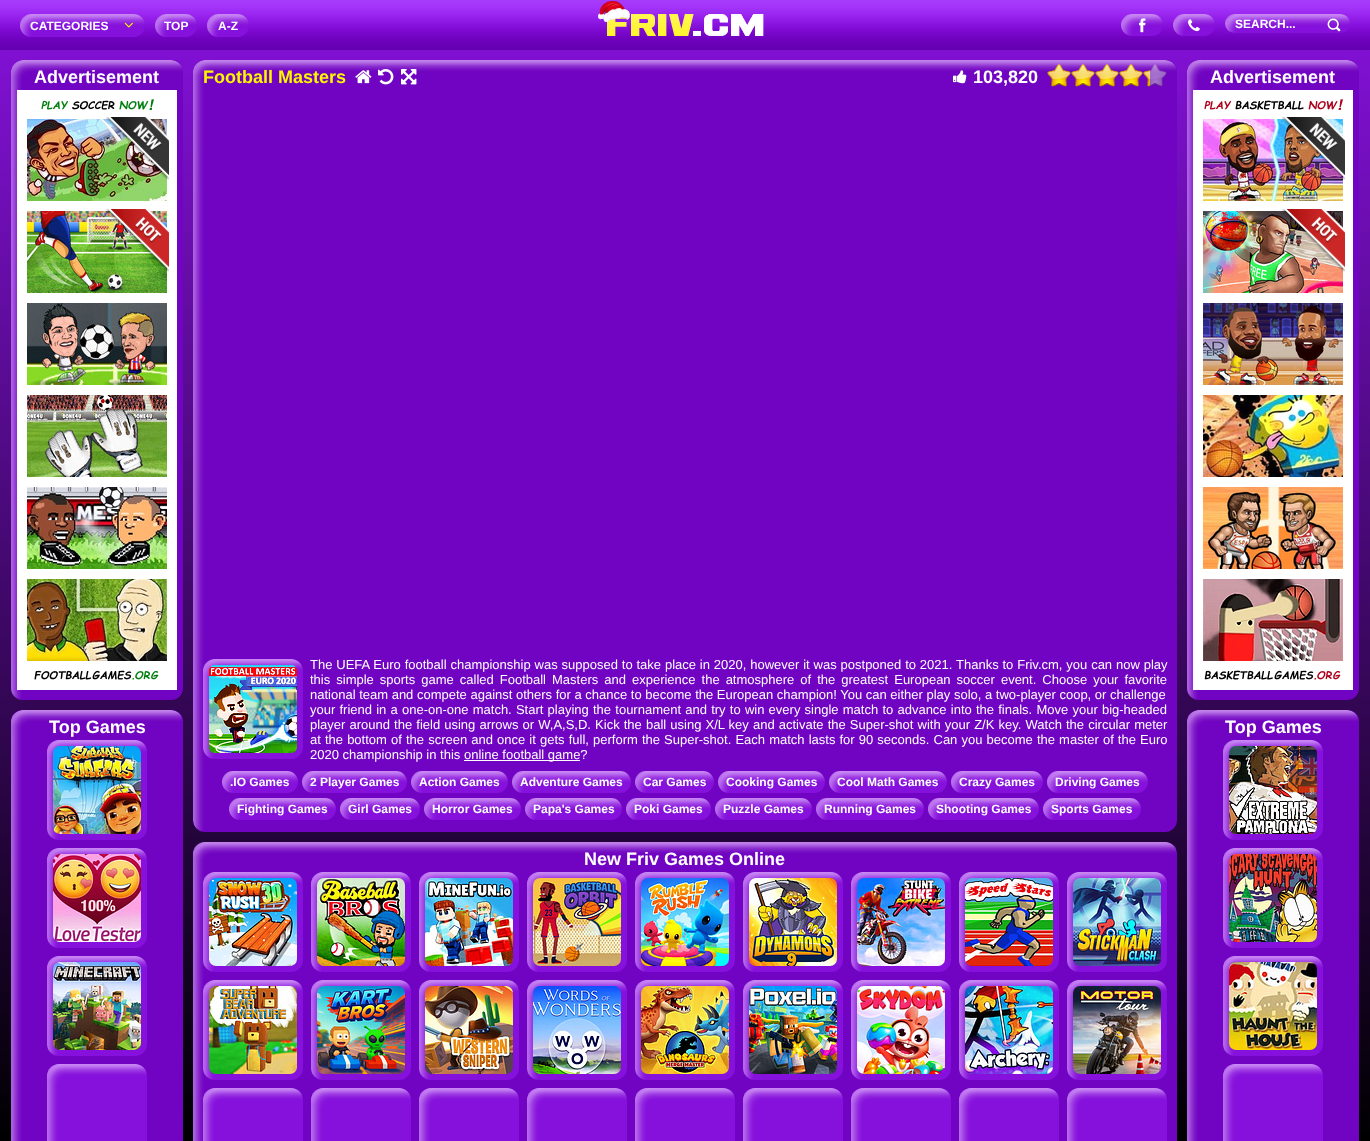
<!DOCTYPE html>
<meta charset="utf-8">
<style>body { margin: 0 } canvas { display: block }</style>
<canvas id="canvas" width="1370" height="1141"></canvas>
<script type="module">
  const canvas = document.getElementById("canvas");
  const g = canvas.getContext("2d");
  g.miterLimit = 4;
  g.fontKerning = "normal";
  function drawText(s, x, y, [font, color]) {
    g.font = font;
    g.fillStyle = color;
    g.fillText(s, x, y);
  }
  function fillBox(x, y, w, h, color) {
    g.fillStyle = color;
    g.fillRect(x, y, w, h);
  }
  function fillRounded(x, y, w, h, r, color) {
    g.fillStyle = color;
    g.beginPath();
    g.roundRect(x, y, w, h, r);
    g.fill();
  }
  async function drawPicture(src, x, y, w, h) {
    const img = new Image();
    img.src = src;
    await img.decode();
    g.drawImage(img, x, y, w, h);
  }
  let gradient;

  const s1 = ["bold 12px Liberation Sans", "#FFFFFF"];
  const s2 = ["bold 18px Liberation Sans", "#FFFFFF"];
  const s3 = ["bold 18px Liberation Sans", "#FFF600"];
  const s4 = ["13px Liberation Sans", "#FFFFFF"];

  fillBox(0, 0, 1370, 1141, "#FFFFFF");
  gradient = g.createLinearGradient(685, 0, 685, 1141);
  gradient.addColorStop(0, "#8611DC");
  gradient.addColorStop(1, "#000000");
  g.fillStyle = gradient;
  g.fillRect(0, 50, 1370, 1091);
  await drawPicture("pic1.png", 0, 0, 1370, 50);
  fillRounded(20, 14, 125, 23, 11.5, "#8611DC");
  await drawPicture("pic2.png", 20, 14, 125, 23);
  drawText("CATEGORIES", 30, 30, s1);
  await drawPicture("pic3.png", 124, 22, 9, 6);
  fillRounded(155, 14, 42, 23, 11.5, "#8611DC");
  await drawPicture("pic4.png", 155, 14, 42, 23);
  drawText("TOP", 164, 30, s1);
  fillRounded(207, 14, 42, 23, 11.5, "#8611DC");
  await drawPicture("pic4.png", 207, 14, 42, 23);
  drawText("A‐Z", 218, 30, s1);
  fillRounded(1121, 14, 42, 22, 11, "#8611DC");
  await drawPicture("pic5.png", 1121, 14, 42, 22);
  await drawPicture("pic6.png", 1139, 18, 7, 15);
  fillRounded(1173, 14, 42, 22, 11, "#8611DC");
  await drawPicture("pic5.png", 1173, 14, 42, 22);
  await drawPicture("pic7.png", 1188, 19, 12, 13);
  fillRounded(1225, 14, 125, 19, 9.5, "#8611DC");
  await drawPicture("pic8.png", 1225, 14, 125, 19);
  drawText("SEARCH...", 1235, 28, s1);
  await drawPicture("pic9.png", 1327, 18, 14, 14);
  g.fillStyle = "#7104C2";
  g.beginPath();
  g.roundRect(11, 60, 172, 30, [12, 12, 0, 0]);
  g.fill();
  await drawPicture("pic10.png", 11, 60, 172, 30);
  drawText("Advertisement", 34, 83, s2);
  g.fillStyle = "#7104C2";
  g.beginPath();
  g.roundRect(11, 90, 172, 610, [0, 0, 12, 12]);
  g.fill();
  await drawPicture("pic11.png", 11, 90, 11, 610);
  await drawPicture("pic12.png", 17, 90, 160, 600);
  g.beginPath();
  g.roundRect(193, 60, 984, 30, [12, 12, 0, 0]);
  g.fill();
  await drawPicture("pic13.png", 193, 60, 984, 30);
  drawText("Football Masters", 203, 83, s3);
  await drawPicture("pic14.png", 355, 70, 17, 14);
  await drawPicture("pic15.png", 378, 69, 16, 16);
  await drawPicture("pic16.png", 401, 69, 16, 16);
  await drawPicture("pic17.png", 953, 70, 14, 14);
  drawText("103,820", 973, 83, s2);
  fillBox(193, 90, 984, 559, "#7104C2");
  g.beginPath();
  g.roundRect(193, 649, 984, 183, [0, 0, 12, 12]);
  g.fill();
  await drawPicture("pic18.png", 193, 90, 11, 563);
  await drawPicture("pic19.png", 193, 653, 11, 178);
  await drawPicture("pic20.png", 1047, 64, 120, 23);
  await drawPicture("pic21.png", 1047, 64, 103, 23);
  fillRounded(203, 659, 100, 100, 12, "#8611DC");
  await drawPicture("pic22.png", 203, 659, 100, 100);
  await drawPicture("pic23.png", 209, 665, 88, 88);
  g.wordSpacing = "0.25px";
  drawText("The UEFA Euro football championship was supposed to take place in 2020, however it was postponed to 2021. Thanks to Friv.cm, you can now play", 310, 669, s4);
  g.wordSpacing = "2.4px";
  drawText("this simple sports game called Football Masters and experience the atmosphere of the greatest European soccer event. Choose your favorite", 310, 684, s4);
  g.wordSpacing = "0px";
  drawText("national team and compete against others for a chance to become the European champion! You can either play solo, a two-player coop, or challenge", 310, 699, s4);
  g.wordSpacing = "0.6px";
  drawText("your friend in a one-on-one match. Start playing the tournament and try to win every single match to advance into the finals. Move your big-headed", 310, 714, s4);
  g.wordSpacing = "0.5px";
  drawText("player around the field using arrows or W,A,S,D. Kick the ball using X/L key and activate the Super-shot with your Z/K key. Watch the circular meter", 310, 729, s4);
  drawText("at the bottom of the screen and once it gets full, perform the Super-shot. Each match lasts for 90 seconds. Can you become the master of the Euro", 310, 744, s4);
  g.wordSpacing = "0px";
  drawText("2020 championship in this", 310, 759, s4);
  fillBox(464, 760, 116, 1, "#FFFFFF");
  drawText("online football game?", 464, 759, s4);
  fillRounded(222, 771, 76, 22, 11, "#8611DC");
  await drawPicture("pic24.png", 222, 771, 76, 22);
  drawText(".IO Games", 230, 786, s1);
  fillRounded(302, 771, 105, 22, 11, "#8611DC");
  await drawPicture("pic25.png", 302, 771, 105, 22);
  drawText("2 Player Games", 310, 786, s1);
  fillRounded(411, 771, 97, 22, 11, "#8611DC");
  await drawPicture("pic26.png", 411, 771, 97, 22);
  drawText("Action Games", 419, 786, s1);
  fillRounded(512, 771, 119, 22, 11, "#8611DC");
  await drawPicture("pic27.png", 512, 771, 119, 22);
  drawText("Adventure Games", 520, 786, s1);
  fillRounded(635, 771, 79, 22, 11, "#8611DC");
  await drawPicture("pic28.png", 635, 771, 79, 22);
  drawText("Car Games", 643, 786, s1);
  fillRounded(718, 771, 107, 22, 11, "#8611DC");
  await drawPicture("pic29.png", 718, 771, 107, 22);
  drawText("Cooking Games", 726, 786, s1);
  fillRounded(829, 771, 118, 22, 11, "#8611DC");
  await drawPicture("pic30.png", 829, 771, 118, 22);
  drawText("Cool Math Games", 837, 786, s1);
  fillRounded(951, 771, 92, 22, 11, "#8611DC");
  await drawPicture("pic31.png", 951, 771, 92, 22);
  drawText("Crazy Games", 959, 786, s1);
  fillRounded(1047, 771, 101, 22, 11, "#8611DC");
  await drawPicture("pic32.png", 1047, 771, 101, 22);
  drawText("Driving Games", 1055, 786, s1);
  fillRounded(229, 798, 107, 22, 11, "#8611DC");
  await drawPicture("pic29.png", 229, 798, 107, 22);
  drawText("Fighting Games", 237, 813, s1);
  fillRounded(340, 798, 80, 22, 11, "#8611DC");
  await drawPicture("pic33.png", 340, 798, 80, 22);
  drawText("Girl Games", 348, 813, s1);
  fillRounded(424, 798, 97, 22, 11, "#8611DC");
  await drawPicture("pic26.png", 424, 798, 97, 22);
  drawText("Horror Games", 432, 813, s1);
  fillRounded(525, 798, 97, 22, 11, "#8611DC");
  await drawPicture("pic26.png", 525, 798, 97, 22);
  drawText("Papa's Games", 533, 813, s1);
  fillRounded(626, 798, 85, 22, 11, "#8611DC");
  await drawPicture("pic34.png", 626, 798, 85, 22);
  drawText("Poki Games", 634, 813, s1);
  fillRounded(715, 798, 97, 22, 11, "#8611DC");
  await drawPicture("pic26.png", 715, 798, 97, 22);
  drawText("Puzzle Games", 723, 813, s1);
  fillRounded(816, 798, 108, 22, 11, "#8611DC");
  await drawPicture("pic35.png", 816, 798, 108, 22);
  drawText("Running Games", 824, 813, s1);
  fillRounded(928, 798, 111, 22, 11, "#8611DC");
  await drawPicture("pic36.png", 928, 798, 111, 22);
  drawText("Shooting Games", 936, 813, s1);
  fillRounded(1043, 798, 98, 22, 11, "#8611DC");
  await drawPicture("pic37.png", 1043, 798, 98, 22);
  drawText("Sports Games", 1051, 813, s1);
  g.fillStyle = "#7104C2";
  g.beginPath();
  g.roundRect(1187, 60, 172, 30, [12, 12, 0, 0]);
  g.fill();
  await drawPicture("pic10.png", 1187, 60, 172, 30);
  drawText("Advertisement", 1210, 83, s2);
  g.fillStyle = "#7104C2";
  g.beginPath();
  g.roundRect(1187, 90, 172, 610, [0, 0, 12, 12]);
  g.fill();
  await drawPicture("pic11.png", 1187, 90, 11, 610);
  await drawPicture("pic38.png", 1193, 90, 160, 600);
  fillRounded(11, 710, 172, 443, 12, "#7104C2");
  await drawPicture("pic39.png", 11, 710, 11, 431);
  fillRounded(47, 740, 100, 100, 12, "#8611DC");
  await drawPicture("pic40.png", 47, 740, 100, 100);
  await drawPicture("pic41.png", 53, 746, 88, 88);
  fillRounded(47, 848, 100, 100, 12, "#8611DC");
  await drawPicture("pic40.png", 47, 848, 100, 100);
  await drawPicture("pic42.png", 53, 854, 88, 88);
  fillRounded(47, 956, 100, 100, 12, "#8611DC");
  await drawPicture("pic40.png", 47, 956, 100, 100);
  await drawPicture("pic43.png", 53, 962, 88, 88);
  fillRounded(47, 1064, 100, 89, 12, "#8611DC");
  await drawPicture("pic44.png", 47, 1064, 100, 77);
  g.fillStyle = "#7104C2";
  g.beginPath();
  g.roundRect(11, 710, 172, 30, [12, 12, 0, 0]);
  g.fill();
  await drawPicture("pic45.png", 11, 710, 172, 30);
  drawText("Top Games", 49, 733, s2);
  fillRounded(1187, 710, 172, 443, 12, "#7104C2");
  await drawPicture("pic39.png", 1187, 710, 11, 431);
  fillRounded(1223, 740, 100, 100, 12, "#8611DC");
  await drawPicture("pic46.png", 1223, 740, 100, 100);
  await drawPicture("pic47.png", 1229, 746, 88, 88);
  fillRounded(1223, 848, 100, 100, 12, "#8611DC");
  await drawPicture("pic46.png", 1223, 848, 100, 100);
  await drawPicture("pic48.png", 1229, 854, 88, 88);
  fillRounded(1223, 956, 100, 100, 12, "#8611DC");
  await drawPicture("pic46.png", 1223, 956, 100, 100);
  await drawPicture("pic49.png", 1229, 962, 88, 88);
  fillRounded(1223, 1064, 100, 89, 12, "#8611DC");
  await drawPicture("pic50.png", 1223, 1064, 100, 77);
  g.fillStyle = "#7104C2";
  g.beginPath();
  g.roundRect(1187, 710, 172, 30, [12, 12, 0, 0]);
  g.fill();
  await drawPicture("pic45.png", 1187, 710, 172, 30);
  drawText("Top Games", 1225, 733, s2);
  g.fillStyle = "#7104C2";
  g.beginPath();
  g.roundRect(193, 842, 984, 30, [12, 12, 0, 0]);
  g.fill();
  await drawPicture("pic51.png", 193, 842, 984, 30);
  drawText("New Friv Games Online", 584, 865, s2);
  fillBox(193, 872, 984, 269, "#7104C2");
  await drawPicture("pic52.png", 193, 872, 11, 269);
  fillRounded(203, 872, 100, 100, 12, "#8611DC");
  await drawPicture("pic53.png", 203, 872, 100, 100);
  await drawPicture("pic54.png", 209, 878, 88, 88);
  fillRounded(311, 872, 100, 100, 12, "#8611DC");
  await drawPicture("pic46.png", 311, 872, 100, 100);
  await drawPicture("pic55.png", 317, 878, 88, 88);
  fillRounded(419, 872, 100, 100, 12, "#8611DC");
  await drawPicture("pic56.png", 419, 872, 100, 100);
  await drawPicture("pic57.png", 425, 878, 88, 88);
  fillRounded(527, 872, 100, 100, 12, "#8611DC");
  await drawPicture("pic46.png", 527, 872, 100, 100);
  await drawPicture("pic58.png", 533, 878, 88, 88);
  fillRounded(635, 872, 100, 100, 12, "#8611DC");
  await drawPicture("pic46.png", 635, 872, 100, 100);
  await drawPicture("pic59.png", 641, 878, 88, 88);
  fillRounded(743, 872, 100, 100, 12, "#8611DC");
  await drawPicture("pic46.png", 743, 872, 100, 100);
  await drawPicture("pic60.png", 749, 878, 88, 88);
  fillRounded(851, 872, 100, 100, 12, "#8611DC");
  await drawPicture("pic40.png", 851, 872, 100, 100);
  await drawPicture("pic61.png", 857, 878, 88, 88);
  fillRounded(959, 872, 100, 100, 12, "#8611DC");
  await drawPicture("pic40.png", 959, 872, 100, 100);
  await drawPicture("pic62.png", 965, 878, 88, 88);
  fillRounded(1067, 872, 100, 100, 12, "#8611DC");
  await drawPicture("pic40.png", 1067, 872, 100, 100);
  await drawPicture("pic63.png", 1073, 878, 88, 88);
  fillRounded(203, 980, 100, 100, 12, "#8611DC");
  await drawPicture("pic53.png", 203, 980, 100, 100);
  await drawPicture("pic64.png", 209, 986, 88, 88);
  fillRounded(311, 980, 100, 100, 12, "#8611DC");
  await drawPicture("pic46.png", 311, 980, 100, 100);
  await drawPicture("pic65.png", 317, 986, 88, 88);
  fillRounded(419, 980, 100, 100, 12, "#8611DC");
  await drawPicture("pic56.png", 419, 980, 100, 100);
  await drawPicture("pic66.png", 425, 986, 88, 88);
  fillRounded(527, 980, 100, 100, 12, "#8611DC");
  await drawPicture("pic46.png", 527, 980, 100, 100);
  await drawPicture("pic67.png", 533, 986, 88, 88);
  fillRounded(635, 980, 100, 100, 12, "#8611DC");
  await drawPicture("pic46.png", 635, 980, 100, 100);
  await drawPicture("pic68.png", 641, 986, 88, 88);
  fillRounded(743, 980, 100, 100, 12, "#8611DC");
  await drawPicture("pic46.png", 743, 980, 100, 100);
  await drawPicture("pic69.png", 749, 986, 88, 88);
  fillRounded(851, 980, 100, 100, 12, "#8611DC");
  await drawPicture("pic40.png", 851, 980, 100, 100);
  await drawPicture("pic70.png", 857, 986, 88, 88);
  fillRounded(959, 980, 100, 100, 12, "#8611DC");
  await drawPicture("pic40.png", 959, 980, 100, 100);
  await drawPicture("pic71.png", 965, 986, 88, 88);
  fillRounded(1067, 980, 100, 100, 12, "#8611DC");
  await drawPicture("pic40.png", 1067, 980, 100, 100);
  await drawPicture("pic72.png", 1073, 986, 88, 88);
  fillRounded(203, 1088, 100, 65, 12, "#8611DC");
  await drawPicture("pic73.png", 203, 1088, 100, 53);
  fillRounded(311, 1088, 100, 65, 12, "#8611DC");
  await drawPicture("pic74.png", 311, 1088, 100, 53);
  fillRounded(419, 1088, 100, 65, 12, "#8611DC");
  await drawPicture("pic75.png", 419, 1088, 100, 53);
  fillRounded(527, 1088, 100, 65, 12, "#8611DC");
  await drawPicture("pic74.png", 527, 1088, 100, 53);
  fillRounded(635, 1088, 100, 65, 12, "#8611DC");
  await drawPicture("pic74.png", 635, 1088, 100, 53);
  fillRounded(743, 1088, 100, 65, 12, "#8611DC");
  await drawPicture("pic74.png", 743, 1088, 100, 53);
  fillRounded(851, 1088, 100, 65, 12, "#8611DC");
  await drawPicture("pic76.png", 851, 1088, 100, 53);
  fillRounded(959, 1088, 100, 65, 12, "#8611DC");
  await drawPicture("pic76.png", 959, 1088, 100, 53);
  fillRounded(1067, 1088, 100, 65, 12, "#8611DC");
  await drawPicture("pic76.png", 1067, 1088, 100, 53);
</script>
